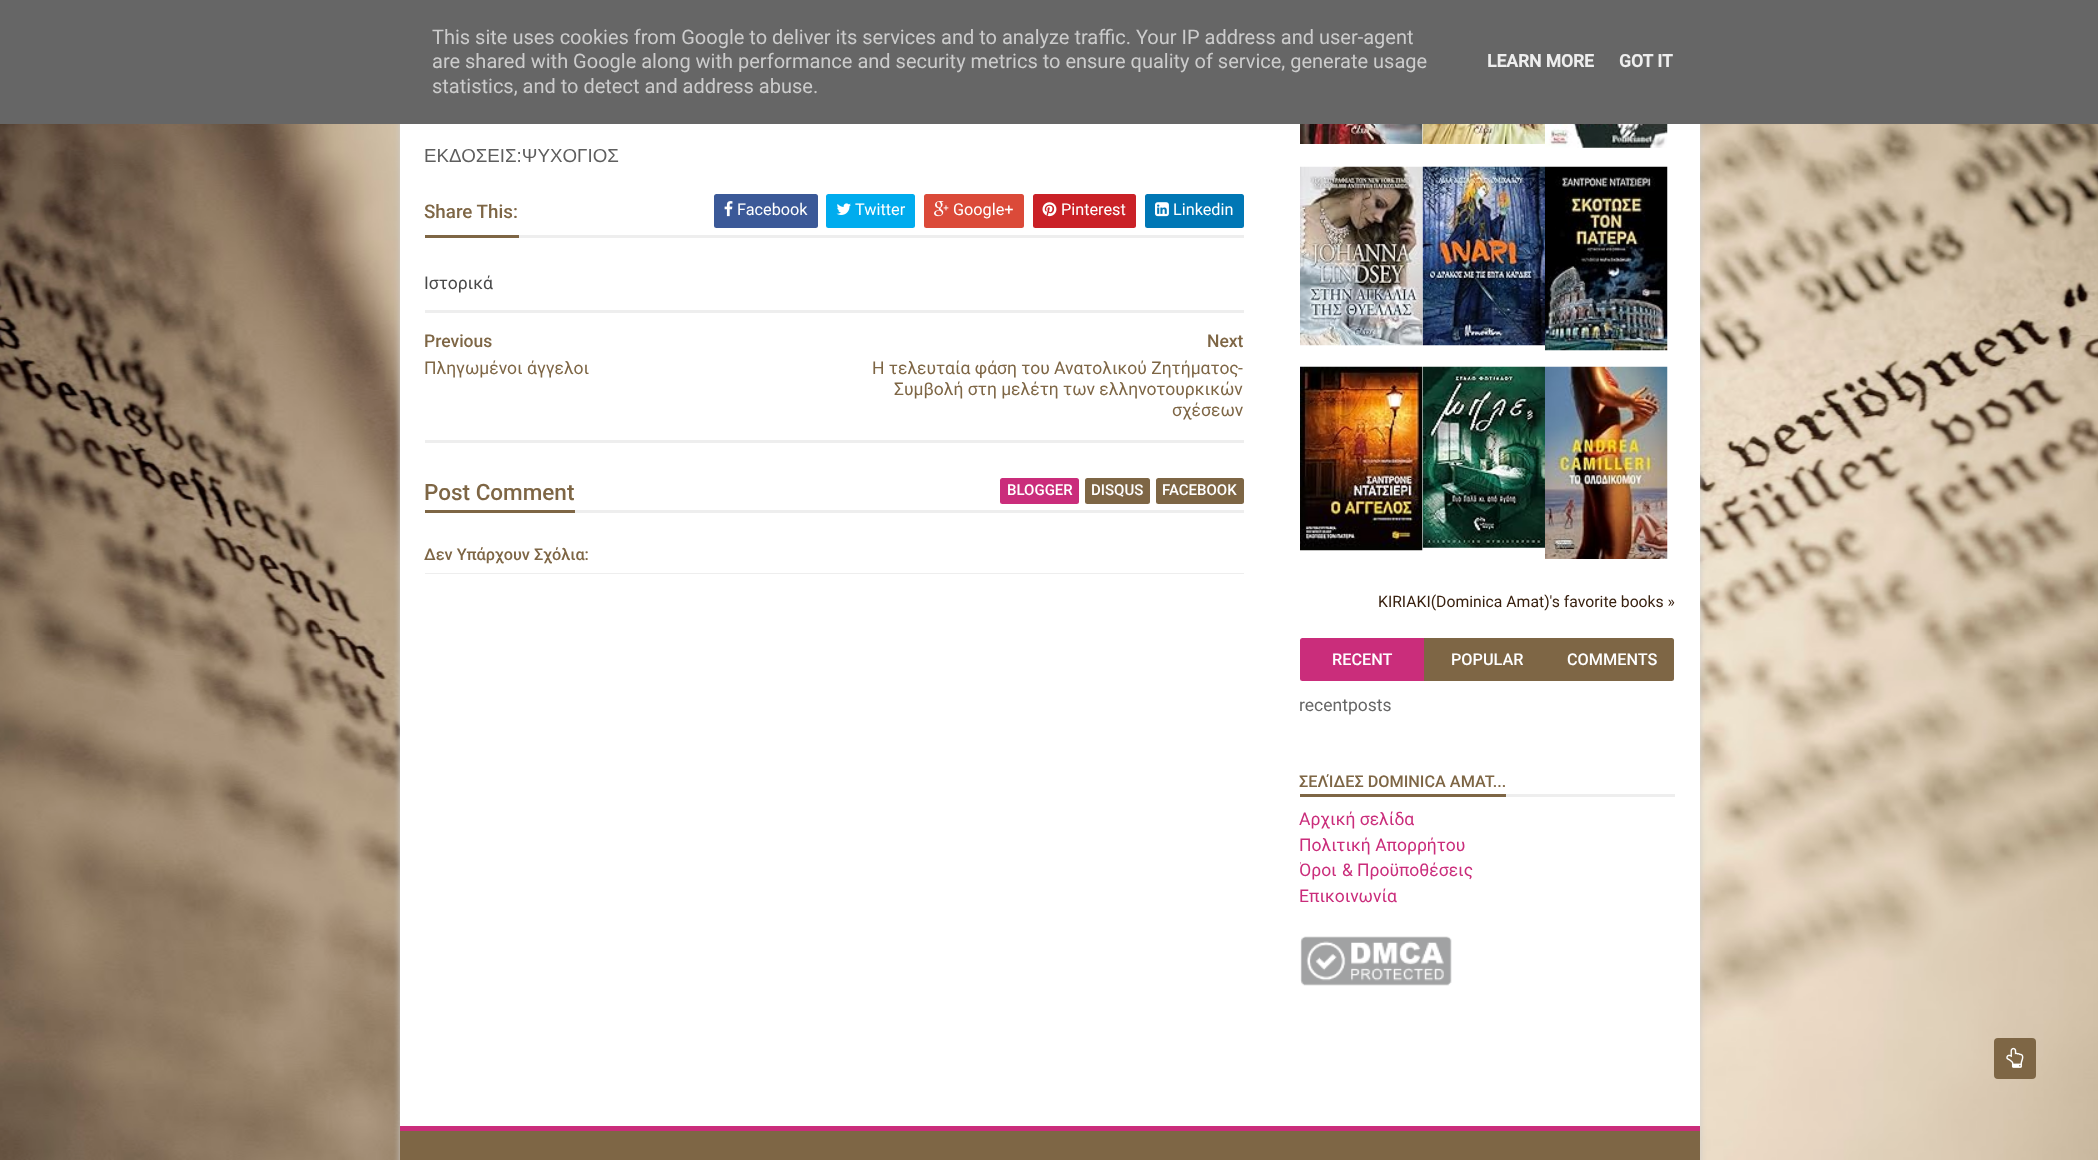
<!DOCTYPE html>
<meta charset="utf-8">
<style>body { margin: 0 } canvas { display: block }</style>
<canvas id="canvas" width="2098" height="1160"></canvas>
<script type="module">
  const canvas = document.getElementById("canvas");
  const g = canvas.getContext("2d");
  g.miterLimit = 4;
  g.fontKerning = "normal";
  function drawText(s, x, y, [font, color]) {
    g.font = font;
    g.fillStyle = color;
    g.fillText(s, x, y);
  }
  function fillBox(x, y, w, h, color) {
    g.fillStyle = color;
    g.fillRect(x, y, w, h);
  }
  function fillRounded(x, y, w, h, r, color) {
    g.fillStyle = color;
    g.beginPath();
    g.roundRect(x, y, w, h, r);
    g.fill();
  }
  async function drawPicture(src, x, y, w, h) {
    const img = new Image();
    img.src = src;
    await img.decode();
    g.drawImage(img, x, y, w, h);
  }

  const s1 = ["20px 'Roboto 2'", "#CCCCCC"];
  const s2 = ["bold 17.5px Roboto", "#EEEEEE"];
  const s3 = ["18.75px Liberation Sans", "#5E5E5E"];
  const s4 = ["500 18.75px Roboto", "#7E6645"];
  const s5 = ["16.25px 'Roboto 2'", "#FFFFFF"];
  const s6 = ["17.5px Roboto", "#494949"];
  const s7 = ["500 17.5px Roboto", "#7E6645"];
  const s8 = ["17.5px Roboto", "#7E6645"];
  const s9 = ["17.5px 'Roboto 2'", "#7E6645"];
  const s10 = ["500 22.5px Roboto", "#7E6645"];
  const s11 = ["500 15px Roboto", "#FFFFFF"];
  const s12 = ["500 16.25px Roboto", "#7E6645"];
  const s13 = ["15.75px 'Roboto 2'", "#382110"];
  const s14 = ["500 16.25px Roboto", "#FFFFFF"];
  const s15 = ["17.5px 'Roboto 2'", "#666666"];
  const s16 = ["17.5px Roboto", "#CA2D7B"];
  const s17 = ["17.5px 'Roboto 2'", "#CA2D7B"];

  fillBox(0, 0, 2098, 1160, "#FFFFFF");
  await drawPicture("pic1.png", 0, 124, 2098, 1036);
  g.fillStyle = "#CCCCCC";
  g.filter = "blur(3px)";
  g.beginPath();
  g.rect(400, -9, 1300, 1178);
  g.fill();
  g.filter = "none";
  fillBox(0, 0, 2098, 124, "#666666");
  drawText("This site uses cookies from Google to deliver its services and to analyze traffic. Your IP address and user-agent", 432, 44, s1);
  drawText("are shared with Google along with performance and security metrics to ensure quality of service, generate usage", 432, 68, s1);
  drawText("statistics, and to detect and address abuse.", 432, 93, s1);
  drawText("LEARN MORE", 1487, 67, s2);
  drawText("GOT IT", 1619, 67, s2);
  fillBox(400, 124, 1300, 1002, "#FFFFFF");
  drawText("ΕΚΔΟΣΕΙΣ:ΨΥΧΟΓΙΟΣ", 424, 162, s3);
  fillBox(519, 235, 725, 3, "#EEEEEE");
  fillBox(425, 235, 94, 3, "#7E6645");
  drawText("Share This:", 424, 218, s4);
  fillRounded(714, 194, 104, 34, 2.5, "#3B5998");
  await drawPicture("pic2.png", 724, 201, 9, 16);
  drawText("Facebook", 737, 215, s5);
  fillRounded(826, 194, 89, 34, 2.5, "#00ACEE");
  await drawPicture("pic3.png", 836, 203, 15, 12);
  drawText("Twitter", 855, 215, s5);
  fillRounded(924, 194, 100, 34, 2.5, "#DB4A39");
  await drawPicture("pic4.png", 934, 201, 15, 16);
  drawText("Google+", 953, 215, s5);
  fillRounded(1033, 194, 103, 34, 2.5, "#CA2127");
  await drawPicture("pic5.png", 1042, 202, 15, 15);
  drawText("Pinterest", 1061, 215, s5);
  fillRounded(1145, 194, 99, 34, 2.5, "#0077B5");
  await drawPicture("pic6.png", 1155, 202, 14, 15);
  drawText("Linkedin", 1173, 215, s5);
  drawText("Ιστορικά", 424, 289, s6);
  fillBox(425, 310, 819, 3, "#EEEEEE");
  fillBox(425, 440, 819, 3, "#EEEEEE");
  drawText("Previous", 424, 347, s7);
  drawText("Πληγωμένοι άγγελοι", 424, 374, s8);
  drawText("Next", 1207, 347, s7);
  drawText("Η τελευταία φάση του Ανατολικού Ζητήματος", 872, 374, s8);
  drawText("-", 1238, 374, s9);
  drawText("Συμβολή στη μελέτη των ελληνοτουρκικών", 894, 395, s8);
  drawText("σχέσεων", 1172, 416, s8);
  fillBox(575, 510, 669, 3, "#EEEEEE");
  fillBox(425, 510, 150, 3, "#7E6645");
  drawText("Post Comment", 424, 500, s10);
  fillRounded(1000, 478, 79, 26, 2.5, "#CA2D7B");
  drawText("BLOGGER", 1007, 495, s11);
  fillRounded(1085, 478, 65, 26, 2.5, "#7E6645");
  drawText("DISQUS", 1091, 495, s11);
  fillRounded(1156, 478, 88, 26, 2.5, "#7E6645");
  drawText("FACEBOOK", 1162, 495, s11);
  fillBox(425, 573, 819, 1, "#EEEEEE");
  drawText("Δεν Υπάρχουν Σχόλια:", 424, 560, s12);
  await drawPicture("pic7.png", 1300, 124, 123, 20);
  await drawPicture("pic8.png", 1422, 124, 123, 20);
  await drawPicture("pic9.png", 1545, 124, 123, 24);
  await drawPicture("pic10.png", 1300, 166, 123, 180);
  await drawPicture("pic11.png", 1422, 166, 123, 180);
  await drawPicture("pic12.png", 1545, 166, 123, 185);
  await drawPicture("pic13.png", 1300, 366, 123, 185);
  await drawPicture("pic14.png", 1422, 366, 123, 182);
  await drawPicture("pic15.png", 1545, 366, 123, 193);
  drawText("KIRIAKI(Dominica Amat)'s favorite books »", 1378, 607, s13);
  g.fillStyle = "#CA2D7B";
  g.beginPath();
  g.roundRect(1300, 638, 124, 43, [2.5, 0, 0, 2.5]);
  g.fill();
  drawText("RECENT", 1332, 665, s14);
  fillBox(1424, 638, 125, 43, "#7E6645");
  drawText("POPULAR", 1451, 665, s14);
  g.fillStyle = "#7E6645";
  g.beginPath();
  g.roundRect(1549, 638, 125, 43, [0, 2.5, 2.5, 0]);
  g.fill();
  drawText("COMMENTS", 1567, 665, s14);
  drawText("recentposts", 1299, 711, s15);
  fillBox(1506, 794, 169, 3, "#EEEEEE");
  fillBox(1300, 794, 206, 3, "#7E6645");
  drawText("ΣΕΛΊΔΕΣ DOMINICA AMAT...", 1299, 787, s12);
  drawText("Αρχική σελίδα", 1299, 825, s16);
  drawText("Πολιτική Απορρήτου", 1299, 851, s16);
  g.save();
  g.beginPath();
  g.rect(1300, 769, 375, 142);
  g.clip();
  drawText("Όροι", 1299, 876, s16);
  g.restore();
  drawText("&", 1342, 876, s17);
  drawText("Προϋποθέσεις", 1357, 876, s16);
  drawText("Επικοινωνία", 1299, 902, s16);
  await drawPicture("pic16.png", 1300, 936, 152, 50);
  fillBox(400, 1131, 1300, 29, "#7E6645");
  fillBox(400, 1126, 1300, 5, "#CA2D7B");
  fillRounded(1994, 1038, 42, 41, 4, "#7E6645");
  await drawPicture("pic17.png", 2006, 1047, 18, 21);
</script>
